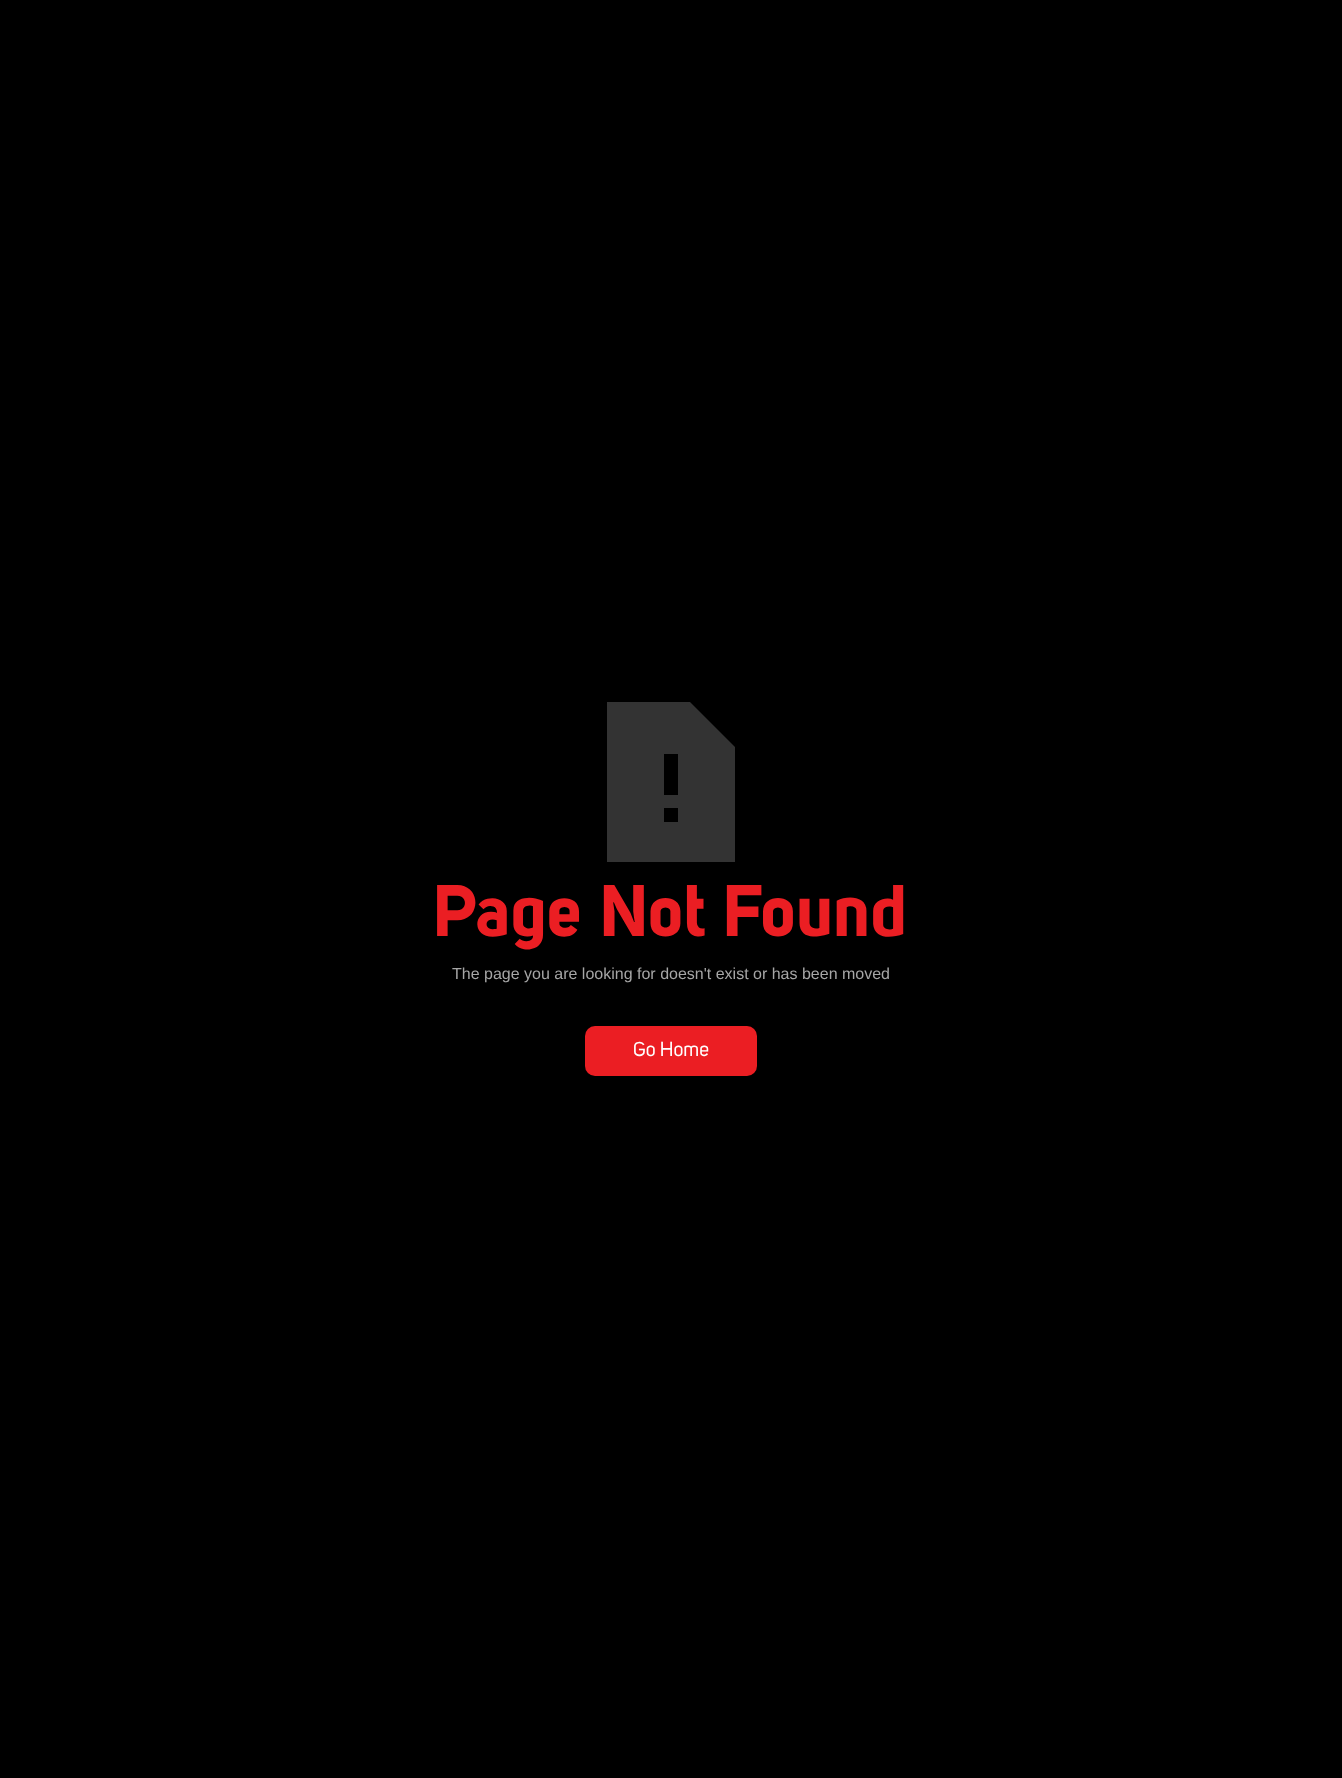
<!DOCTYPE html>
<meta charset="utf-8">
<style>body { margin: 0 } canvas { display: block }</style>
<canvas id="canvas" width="1342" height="1778"></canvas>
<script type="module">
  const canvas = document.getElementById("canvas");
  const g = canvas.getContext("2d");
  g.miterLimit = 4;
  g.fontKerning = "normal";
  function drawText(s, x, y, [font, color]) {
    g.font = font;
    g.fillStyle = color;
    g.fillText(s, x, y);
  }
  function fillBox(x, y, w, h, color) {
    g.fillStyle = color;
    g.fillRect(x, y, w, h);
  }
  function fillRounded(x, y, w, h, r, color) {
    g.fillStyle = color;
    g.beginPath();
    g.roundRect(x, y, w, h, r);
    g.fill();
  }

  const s1 = ["bold 72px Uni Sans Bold", "#EB1E23"];
  const s2 = ["16px Liberation Sans", "#A6A6A6"];
  const s3 = ["20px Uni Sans", "#FFFFFF"];

  fillBox(0, 0, 1342, 1778, "#000000");
  g.save();
  g.beginPath();
  g.rect(607, 702, 128, 160);
  g.clip();
  g.fillStyle = "#333333";
  g.beginPath();
  g.moveTo(607, 702);
  g.lineTo(690, 702);
  g.lineTo(735, 747);
  g.lineTo(735, 863);
  g.lineTo(607, 863);
  g.closePath();
  g.moveTo(664, 754);
  g.lineTo(678, 754);
  g.lineTo(678, 795);
  g.lineTo(664, 795);
  g.closePath();
  g.moveTo(664, 808);
  g.lineTo(678, 808);
  g.lineTo(678, 822);
  g.lineTo(664, 822);
  g.closePath();
  g.fill("evenodd");
  g.restore();
  drawText("Page Not Found", 434, 936, s1);
  drawText("The page you are looking for doesn't exist or has been moved", 452, 979, s2);
  fillRounded(585, 1026, 172, 50, 10, "#EB1E23");
  drawText("Go Home", 633, 1056, s3);
</script>
